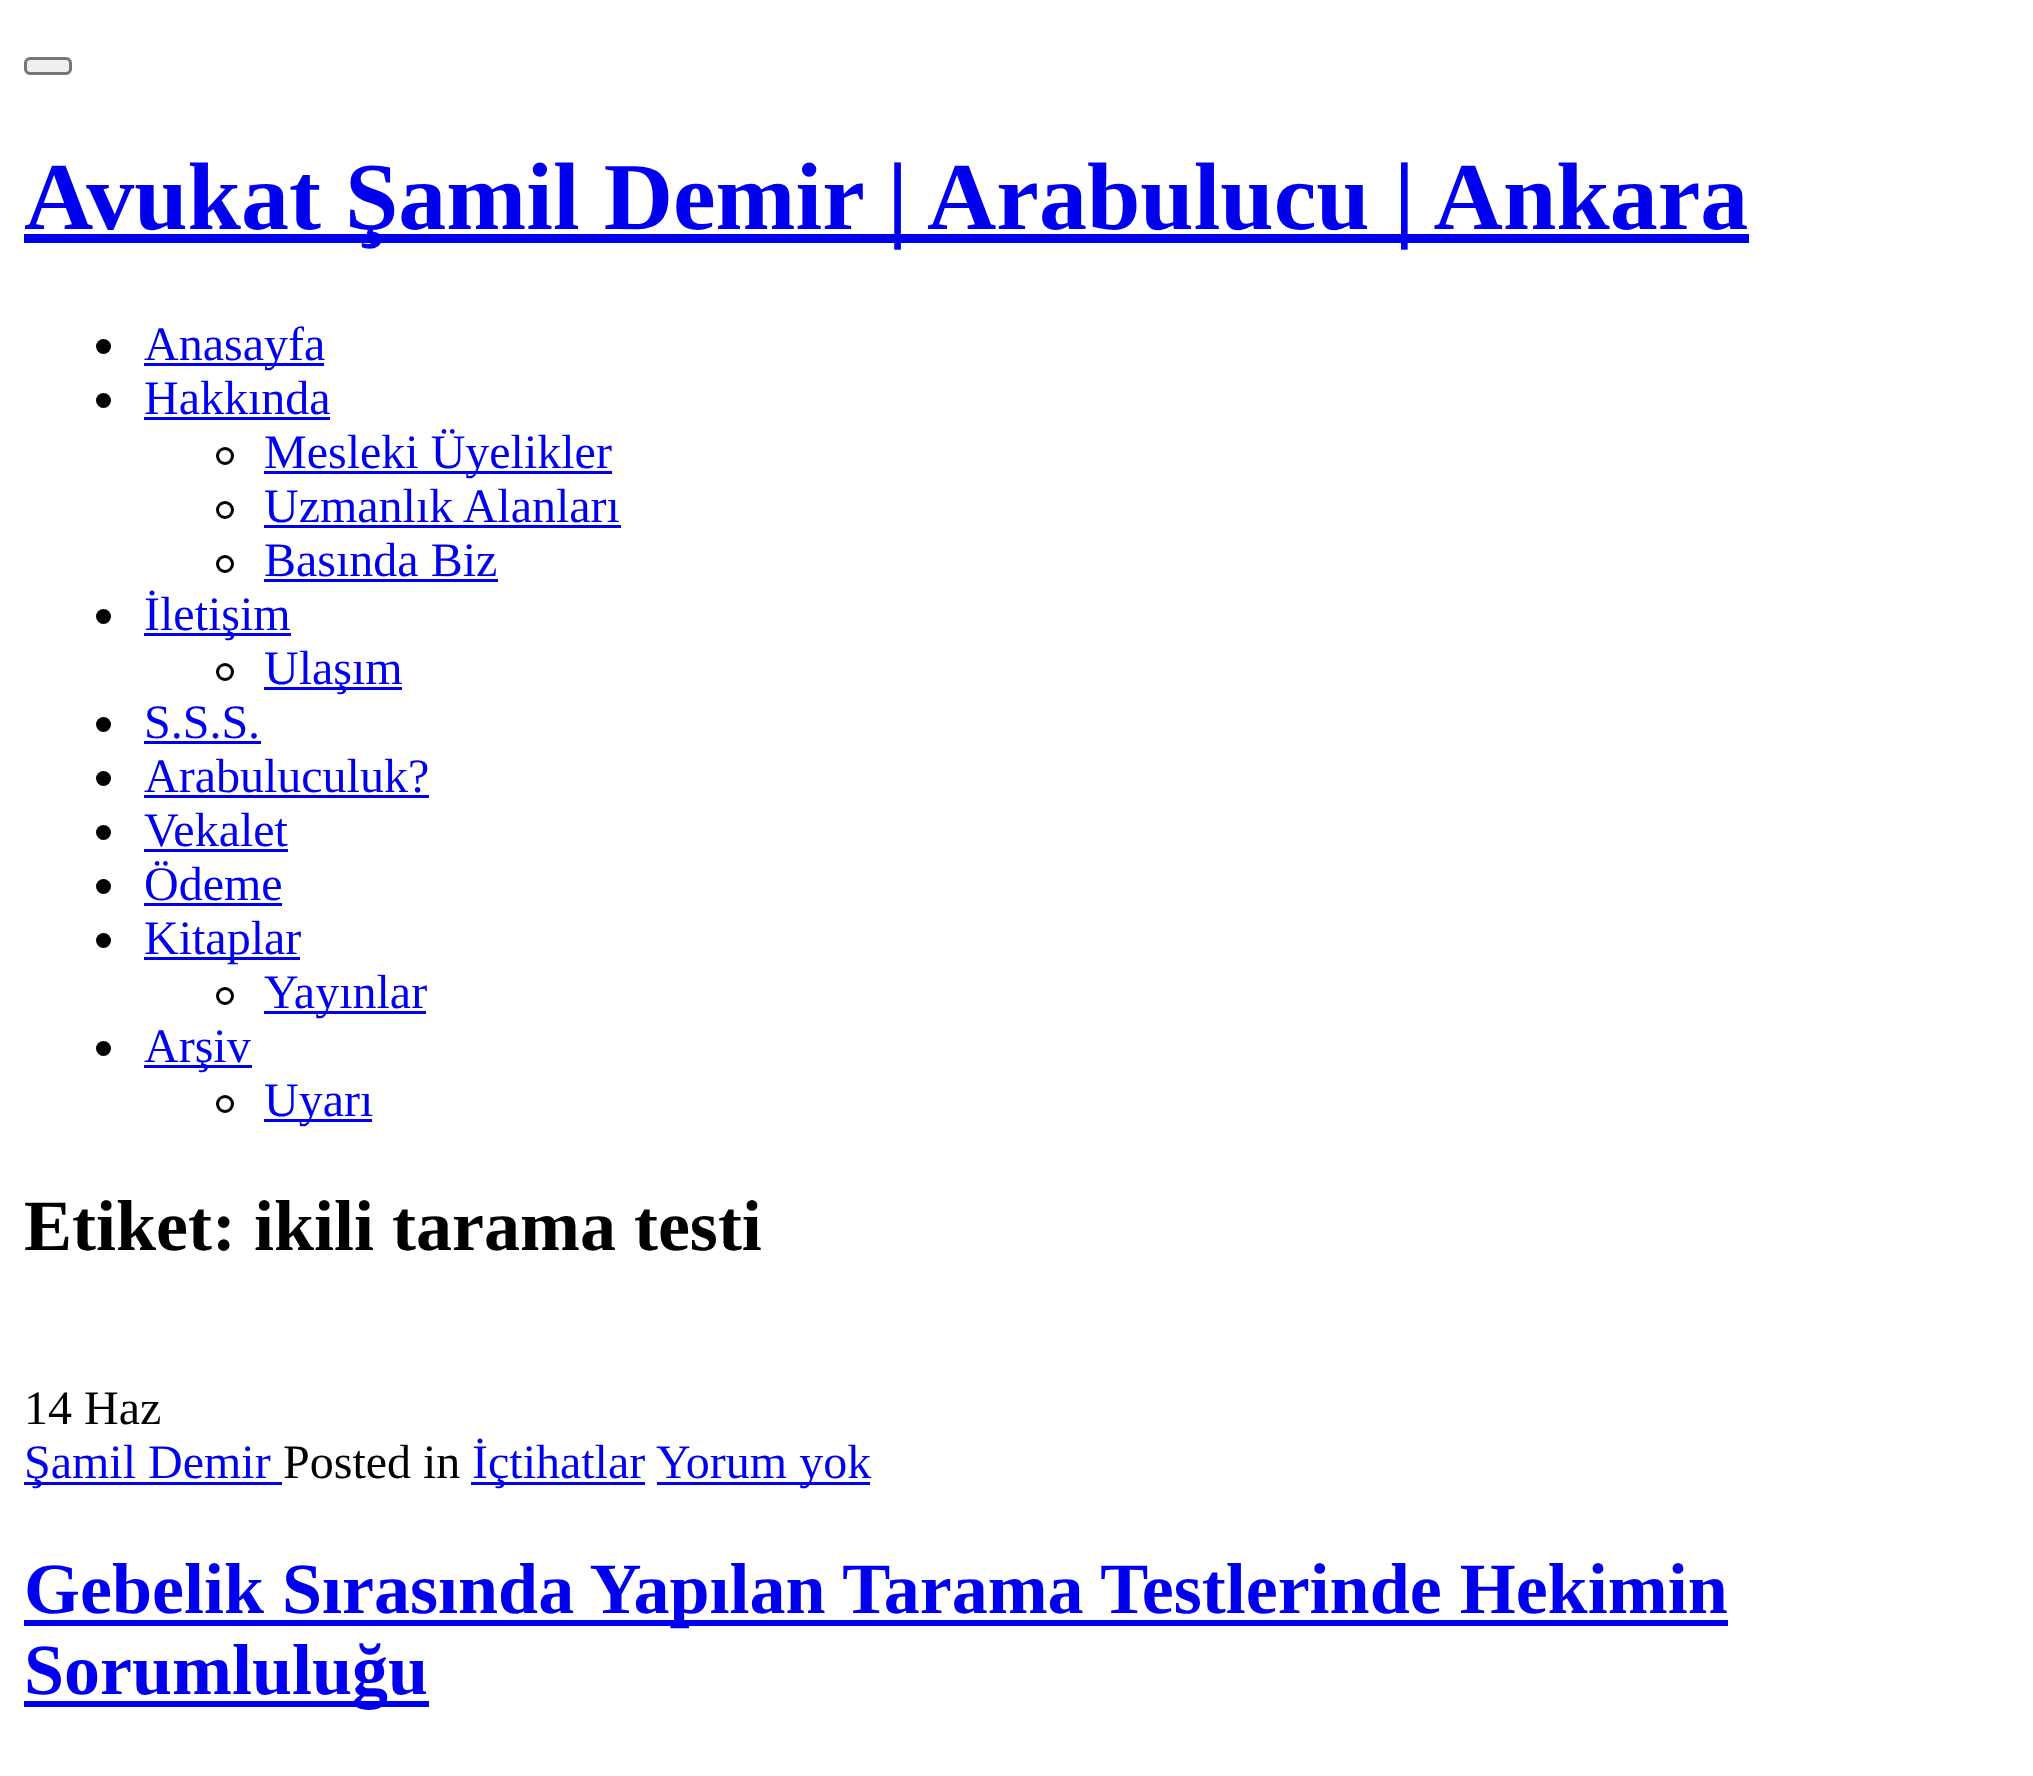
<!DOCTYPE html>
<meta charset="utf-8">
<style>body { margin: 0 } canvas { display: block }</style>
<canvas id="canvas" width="2033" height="1776"></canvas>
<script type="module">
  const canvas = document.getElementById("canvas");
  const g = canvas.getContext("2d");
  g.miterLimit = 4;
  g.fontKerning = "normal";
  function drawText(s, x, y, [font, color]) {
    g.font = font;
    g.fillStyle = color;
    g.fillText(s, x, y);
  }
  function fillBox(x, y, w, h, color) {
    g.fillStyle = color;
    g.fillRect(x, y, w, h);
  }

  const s1 = ["bold 96px Liberation Serif", "#0000EE"];
  const s2 = ["48px Liberation Serif", "#0000EE"];
  const s3 = ["bold 72px Liberation Serif", "#000000"];
  const s4 = ["48px Liberation Serif", "#000000"];
  const s5 = ["bold 72px Liberation Serif", "#0000EE"];

  fillBox(0, 0, 2033, 1776, "#FFFFFF");
  g.fillStyle = "#EFEFEF";
  g.beginPath();
  g.roundRect(25.5, 58.5, 45, 15, 4.5);
  g.fill();
  g.strokeStyle = "#767676";
  g.lineWidth = 3;
  g.stroke();
  fillBox(24, 234, 1725, 9, "#0000EE");
  drawText("Avukat Şamil Demir | Arabulucu | Ankara", 24, 229, s1);
  g.fillStyle = "#000000";
  g.beginPath();
  g.arc(103.5, 346.5, 7.5, 0, Math.PI * 2);
  g.fill();
  fillBox(144, 363, 180, 3, "#0000EE");
  drawText("Anasayfa", 144, 360, s2);
  g.fillStyle = "#000000";
  g.beginPath();
  g.arc(103.5, 400.5, 7.5, 0, Math.PI * 2);
  g.fill();
  drawText("Hakkında", 144, 414, s2);
  fillBox(144, 417, 186, 3, "#0000EE");
  g.beginPath();
  g.arc(225, 456, 7.5, 0, Math.PI * 2);
  g.strokeStyle = "#000000";
  g.stroke();
  fillBox(264, 471, 348, 3, "#0000EE");
  drawText("Mesleki Üyelikler", 264, 468, s2);
  g.beginPath();
  g.arc(225, 510, 7.5, 0, Math.PI * 2);
  g.stroke();
  drawText("Uzmanlık Alanları", 264, 522, s2);
  fillBox(264, 525, 357, 3, "#0000EE");
  g.beginPath();
  g.arc(225, 564, 7.5, 0, Math.PI * 2);
  g.stroke();
  drawText("Basında Biz", 264, 576, s2);
  fillBox(264, 579, 234, 3, "#0000EE");
  g.fillStyle = "#000000";
  g.beginPath();
  g.arc(103.5, 616.5, 7.5, 0, Math.PI * 2);
  g.fill();
  fillBox(144, 633, 147, 3, "#0000EE");
  drawText("İletişim", 144, 630, s2);
  g.beginPath();
  g.arc(225, 672, 7.5, 0, Math.PI * 2);
  g.stroke();
  fillBox(264, 687, 138, 3, "#0000EE");
  drawText("Ulaşım", 264, 684, s2);
  g.fillStyle = "#000000";
  g.beginPath();
  g.arc(103.5, 724.5, 7.5, 0, Math.PI * 2);
  g.fill();
  drawText("S.S.S.", 144, 738, s2);
  fillBox(144, 741, 117, 3, "#0000EE");
  g.fillStyle = "#000000";
  g.beginPath();
  g.arc(103.5, 778.5, 7.5, 0, Math.PI * 2);
  g.fill();
  drawText("Arabuluculuk?", 144, 792, s2);
  fillBox(144, 795, 285, 3, "#0000EE");
  g.fillStyle = "#000000";
  g.beginPath();
  g.arc(103.5, 832.5, 7.5, 0, Math.PI * 2);
  g.fill();
  drawText("Vekalet", 144, 846, s2);
  fillBox(144, 849, 144, 3, "#0000EE");
  g.fillStyle = "#000000";
  g.beginPath();
  g.arc(103.5, 886.5, 7.5, 0, Math.PI * 2);
  g.fill();
  drawText("Ödeme", 144, 900, s2);
  fillBox(144, 903, 138, 3, "#0000EE");
  g.fillStyle = "#000000";
  g.beginPath();
  g.arc(103.5, 940.5, 7.5, 0, Math.PI * 2);
  g.fill();
  fillBox(144, 957, 156, 3, "#0000EE");
  drawText("Kitaplar", 144, 954, s2);
  g.beginPath();
  g.arc(225, 996, 7.5, 0, Math.PI * 2);
  g.stroke();
  fillBox(264, 1011, 162, 3, "#0000EE");
  drawText("Yayınlar", 264, 1008, s2);
  g.fillStyle = "#000000";
  g.beginPath();
  g.arc(103.5, 1048.5, 7.5, 0, Math.PI * 2);
  g.fill();
  fillBox(144, 1065, 108, 3, "#0000EE");
  drawText("Arşiv", 144, 1062, s2);
  g.beginPath();
  g.arc(225, 1104, 7.5, 0, Math.PI * 2);
  g.stroke();
  fillBox(264, 1119, 108, 3, "#0000EE");
  drawText("Uyarı", 264, 1116, s2);
  drawText("Etiket: ikili tarama testi", 24, 1250, s3);
  drawText("14 Haz", 24, 1424, s4);
  fillBox(24, 1482, 258, 3, "#0000EE");
  drawText("Şamil Demir", 24, 1478, s2);
  drawText("Posted in", 283, 1478, s4);
  fillBox(471, 1482, 174, 3, "#0000EE");
  drawText("İçtihatlar", 472, 1478, s2);
  fillBox(657, 1482, 213, 3, "#0000EE");
  drawText("Yorum yok", 656, 1478, s2);
  fillBox(24, 1620, 1704, 6, "#0000EE");
  drawText("Gebelik Sırasında Yapılan Tarama Testlerinde Hekimin", 24, 1613, s5);
  fillBox(24, 1701, 405, 6, "#0000EE");
  drawText("Sorumluluğu", 24, 1694, s5);
</script>
